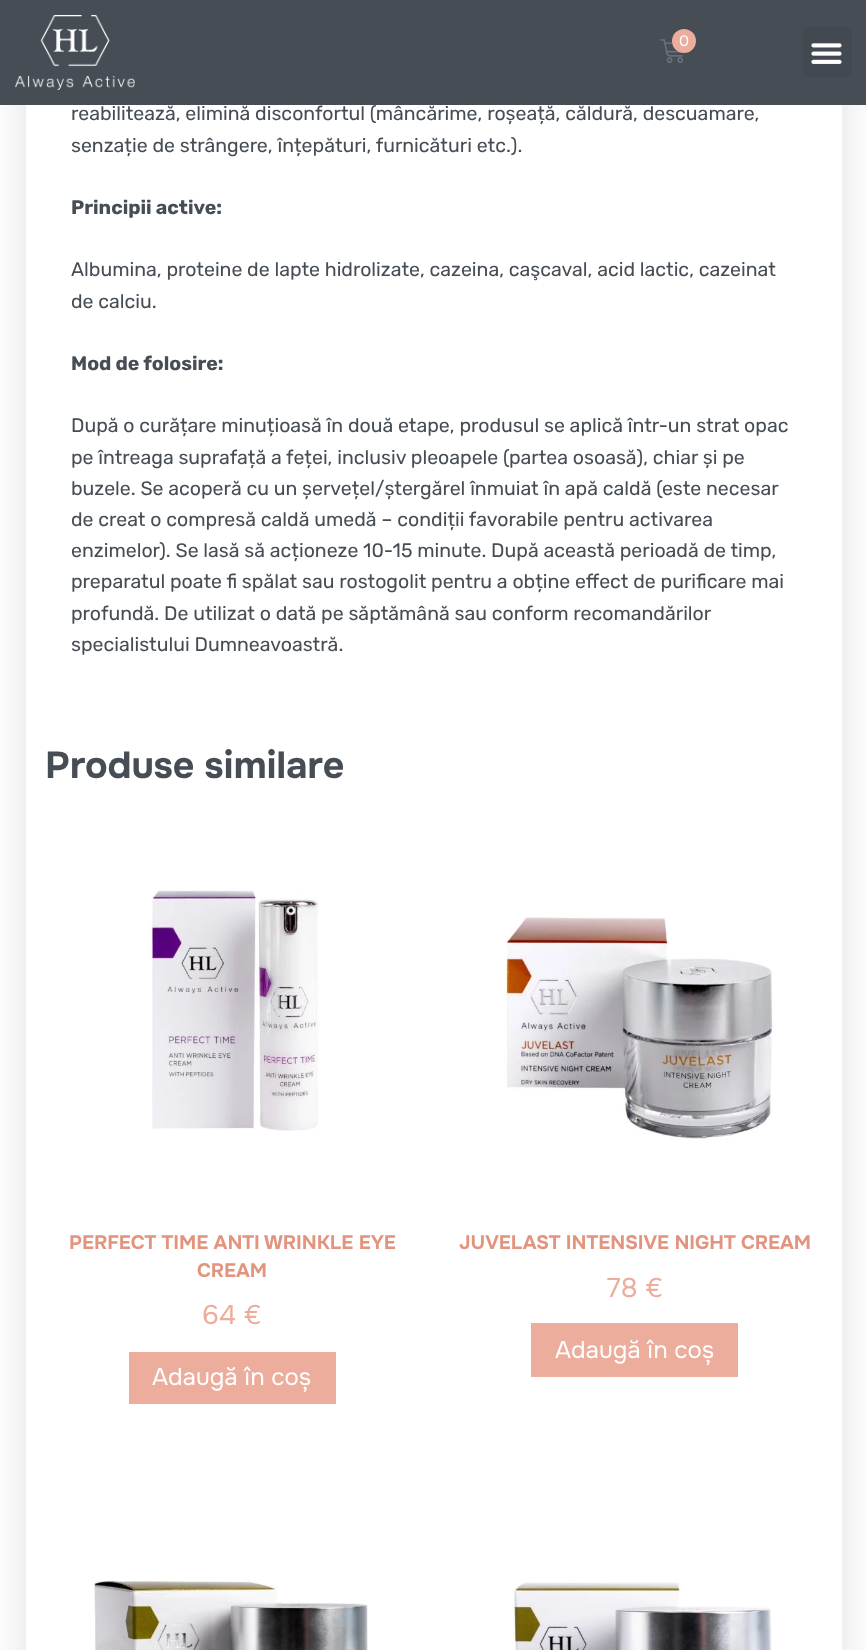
<!DOCTYPE html>
<meta charset="utf-8">
<style>body { margin: 0 } canvas { display: block }</style>
<canvas id="canvas" width="866" height="1650"></canvas>
<script type="module">
  const canvas = document.getElementById("canvas");
  const g = canvas.getContext("2d");
  g.miterLimit = 4;
  g.fontKerning = "normal";
  function drawText(s, x, y, [font, color]) {
    g.font = font;
    g.fillStyle = color;
    g.fillText(s, x, y);
  }
  function fillBox(x, y, w, h, color) {
    g.fillStyle = color;
    g.fillRect(x, y, w, h);
  }
  function fillRounded(x, y, w, h, r, color) {
    g.fillStyle = color;
    g.beginPath();
    g.roundRect(x, y, w, h, r);
    g.fill();
  }
  async function drawPicture(src, x, y, w, h) {
    const img = new Image();
    img.src = src;
    await img.decode();
    g.drawImage(img, x, y, w, h);
  }

  const s1 = ["15px Onest", "#FFFFFF"];
  const s2 = ["19.5px Rubik", "#464D55"];
  const s3 = ["bold 19.5px Rubik", "#464D55"];
  const s4 = ["bold 37.5px Onest", "#464D55"];
  const s5 = ["bold 19.5px Onest", "#E3947F"];
  const s6 = ["27px Onest", "#ECAD9C"];
  const s7 = ["24px Onest", "#FFFFFF"];

  fillBox(0, 0, 866, 1650, "#FFFFFF");
  g.fillStyle = "rgba(0, 0, 0, 0.12)";
  g.filter = "blur(22.5px)";
  g.beginPath();
  g.rect(26, -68, 816, 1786);
  g.fill();
  g.filter = "none";
  fillBox(0, 0, 866, 105, "#464D55");
  await drawPicture("pic1.png", 15, 15, 120, 75);
  await drawPicture("pic2.png", 660, 39, 24, 24);
  g.fillStyle = "#ECAD9C";
  g.beginPath();
  g.arc(684, 41, 12, 0, Math.PI * 2);
  g.fill();
  drawText("0", 679, 46, s1);
  fillRounded(803, 27, 49, 50, 5, "#434951");
  await drawPicture("pic3.png", 811, 43, 31, 21);
  fillBox(26, 105, 816, 1545, "#FFFFFF");
  drawText("reabilitează, elimină disconfortul (mâncărime, roșeață, căldură, descuamare,", 71, 120, s2);
  drawText("senzație de strângere, înțepături, furnicături etc.).", 71, 152, s2);
  drawText("Principii active:", 71, 214, s3);
  drawText("Albumina, proteine de lapte hidrolizate, cazeina, caşcaval, acid lactic, cazeinat", 71, 276, s2);
  drawText("de calciu.", 71, 308, s2);
  drawText("Mod de folosire:", 71, 370, s3);
  drawText("După o curățare minuțioasă în două etape, produsul se aplică într-un strat opac", 71, 432, s2);
  drawText("pe întreaga suprafață a feței, inclusiv pleoapele (partea osoasă), chiar și pe", 71, 464, s2);
  drawText("buzele. Se acoperă cu un șervețel/ștergărel înmuiat în apă caldă (este necesar", 71, 495, s2);
  drawText("de creat o compresă caldă umedă – condiții favorabile pentru activarea", 71, 526, s2);
  drawText("enzimelor). Se lasă să acționeze 10-15 minute. După această perioadă de timp,", 71, 557, s2);
  drawText("preparatul poate fi spălat sau rostogolit pentru a obține effect de purificare mai", 71, 588, s2);
  drawText("profundă. De utilizat o dată pe săptămână sau conform recomandărilor", 71, 620, s2);
  drawText("specialistului Dumneavoastră.", 71, 651, s2);
  drawText("Produse similare", 45, 778, s4);
  await drawPicture("pic4.png", 149, 890, 170, 241);
  drawText("PERFECT TIME ANTI WRINKLE EYE", 69, 1249, s5);
  drawText("CREAM", 197, 1277, s5);
  drawText("64 €", 202, 1324, s6);
  fillBox(129, 1352, 207, 52, "#ECAD9C");
  drawText("Adaugă în coș", 152, 1385, s7);
  await drawPicture("pic5.png", 503, 917, 270, 224);
  drawText("JUVELAST INTENSIVE NIGHT CREAM", 459, 1249, s5);
  drawText("78 €", 607, 1297, s6);
  fillBox(531, 1323, 207, 54, "#ECAD9C");
  drawText("Adaugă în coș", 555, 1358, s7);
  await drawPicture("pic6.png", 94, 1580, 275, 70);
  await drawPicture("pic7.png", 512, 1582, 260, 68);
</script>
